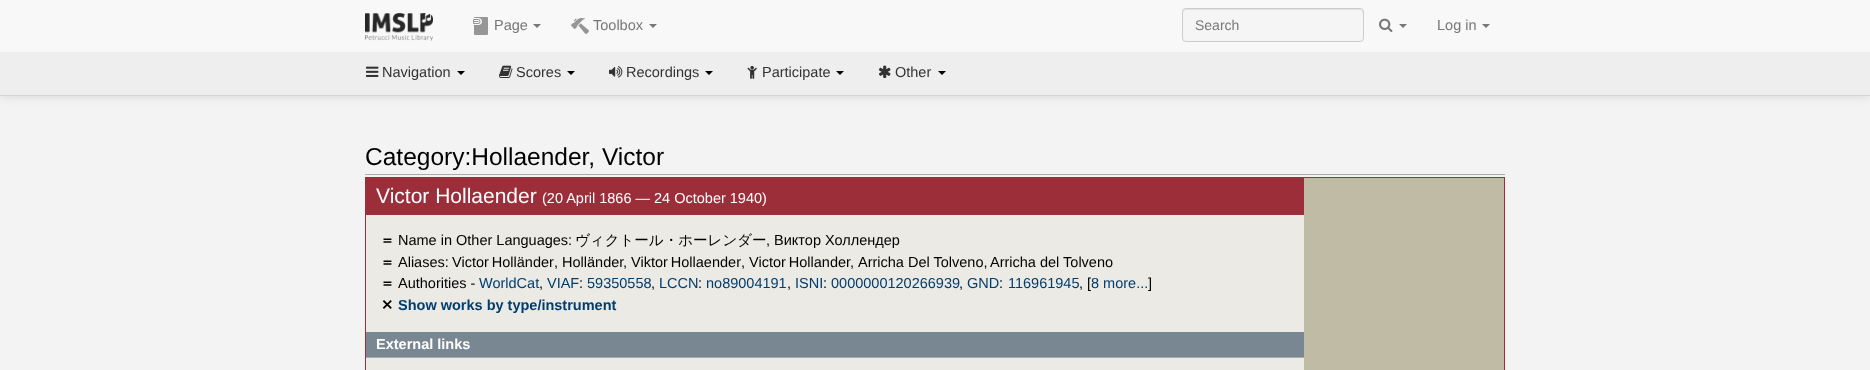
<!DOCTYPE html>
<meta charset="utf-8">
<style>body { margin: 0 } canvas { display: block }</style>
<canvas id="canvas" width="1870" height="370"></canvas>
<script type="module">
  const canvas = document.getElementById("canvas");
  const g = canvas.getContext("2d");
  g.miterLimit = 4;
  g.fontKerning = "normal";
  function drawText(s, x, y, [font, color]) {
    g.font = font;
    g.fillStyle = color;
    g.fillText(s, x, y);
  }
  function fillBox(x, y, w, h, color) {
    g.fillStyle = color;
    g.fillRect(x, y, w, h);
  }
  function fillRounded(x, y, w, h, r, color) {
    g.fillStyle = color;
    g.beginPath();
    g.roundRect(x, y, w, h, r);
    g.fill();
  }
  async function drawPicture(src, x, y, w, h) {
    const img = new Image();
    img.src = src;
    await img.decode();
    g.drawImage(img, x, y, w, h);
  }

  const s1 = ["14.5px Liberation Sans", "#777777"];
  const s2 = ["14px Liberation Sans", "#777777"];
  const s3 = ["14.5px Liberation Sans", "#333333"];
  const s4 = ["24.5px Liberation Sans", "#000000"];
  const s5 = ["21px Liberation Sans", "#FFFFFF"];
  const s6 = ["14.5px Liberation Sans", "#FFFFFF"];
  const s7 = ["bold 14.5px WenQuanYi Zen Hei", "#000000"];
  const s8 = ["14.5px Liberation Sans", "#000000"];
  const s9 = ["500 14.5px WenQuanYi Zen Hei", "#000000"];
  const s10 = ["14.5px Liberation Sans", "#003D70"];
  const s11 = ["bold 14.5px DejaVu Sans", "#000000"];
  const s12 = ["bold 14.5px Liberation Sans", "#003D70"];
  const s13 = ["bold 14.5px Liberation Sans", "#FFFFFF"];

  fillBox(0, 0, 1870, 370, "#F3F3F3");
  g.fillStyle = "rgba(0, 0, 0, 0.1)";
  g.filter = "blur(5px)";
  g.beginPath();
  g.rect(0, 53, 1870, 44);
  g.fill();
  g.filter = "none";
  fillBox(0, 0, 1870, 52, "#F8F8F8");
  await drawPicture("pic1.png", 365, 13, 68, 28);
  await drawPicture("pic2.png", 473, 17, 15, 18);
  drawText("Page", 494, 30, s1);
  g.beginPath();
  g.moveTo(533, 24);
  g.lineTo(541, 24);
  g.lineTo(537, 28);
  g.closePath();
  g.fill();
  await drawPicture("pic3.png", 571, 18, 18, 16);
  drawText("Toolbox", 593, 30, s1);
  g.beginPath();
  g.moveTo(649, 24);
  g.lineTo(657, 24);
  g.lineTo(653, 28);
  g.closePath();
  g.fill();
  fillRounded(1182, 8, 182, 34, 4, "#F5F5F5");
  g.fillStyle = "#E3E3E3";
  g.beginPath();
  g.moveTo(1186, 10);
  g.lineTo(1361, 10);
  g.lineTo(1362, 11);
  g.lineTo(1363, 13);
  g.lineTo(1363, 12);
  g.bezierCurveTo(1363, 10, 1362, 9, 1360, 9);
  g.lineTo(1186, 9);
  g.bezierCurveTo(1184, 9, 1183, 10, 1183, 12);
  g.lineTo(1183, 13);
  g.bezierCurveTo(1183, 11, 1184, 10, 1186, 10);
  g.closePath();
  g.fill();
  g.beginPath();
  g.roundRect(1182.5, 8.5, 181, 33, 3.5);
  g.strokeStyle = "#CCCCCC";
  g.stroke();
  drawText("Search", 1195, 30, s2);
  await drawPicture("pic4.png", 1379, 18, 14, 14);
  g.beginPath();
  g.moveTo(1399, 24);
  g.lineTo(1407, 24);
  g.lineTo(1403, 28);
  g.closePath();
  g.fill();
  drawText("Log in", 1437, 30, s1);
  g.beginPath();
  g.moveTo(1482, 24);
  g.lineTo(1490, 24);
  g.lineTo(1486, 28);
  g.closePath();
  g.fill();
  fillBox(0, 52, 1870, 43, "#EEEEEE");
  fillBox(0, 95, 1870, 1, "#D5D5D5");
  await drawPicture("pic5.png", 366, 66, 13, 11);
  drawText("Navigation", 382, 77, s3);
  g.fillStyle = "#000000";
  g.beginPath();
  g.moveTo(457, 71);
  g.lineTo(465, 71);
  g.lineTo(461, 75);
  g.closePath();
  g.fill();
  await drawPicture("pic6.png", 499, 65, 14, 13);
  drawText("Scores", 516, 77, s3);
  g.fillStyle = "#000000";
  g.beginPath();
  g.moveTo(567, 71);
  g.lineTo(575, 71);
  g.lineTo(571, 75);
  g.closePath();
  g.fill();
  await drawPicture("pic7.png", 609, 66, 14, 12);
  drawText("Recordings", 626, 77, s3);
  g.fillStyle = "#000000";
  g.beginPath();
  g.moveTo(705, 71);
  g.lineTo(713, 71);
  g.lineTo(709, 75);
  g.closePath();
  g.fill();
  await drawPicture("pic8.png", 747, 65, 10, 14);
  drawText("Participate", 762, 77, s3);
  g.fillStyle = "#000000";
  g.beginPath();
  g.moveTo(836, 71);
  g.lineTo(844, 71);
  g.lineTo(840, 75);
  g.closePath();
  g.fill();
  await drawPicture("pic9.png", 879, 65, 12, 13);
  drawText("Other", 895, 77, s3);
  g.fillStyle = "#000000";
  g.beginPath();
  g.moveTo(938, 71);
  g.lineTo(946, 71);
  g.lineTo(942, 75);
  g.closePath();
  g.fill();
  fillBox(365, 174, 1140, 1, "#AAAAAA");
  drawText("Category:Hollaender, Victor", 365, 165, s4);
  g.strokeStyle = "#9C2E3A";
  g.strokeRect(365.5, 177.5, 1139, 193);
  fillBox(366, 215, 938, 155, "#EBEAE4");
  fillBox(1304, 178, 200, 192, "#BFBBA5");
  fillBox(366, 178, 938, 37, "#9C2E3A");
  drawText("Victor Hollaender", 376, 203, s5);
  drawText("(20 April 1866 — 24 October 1940)", 542, 203, s6);
  drawText("＝", 380, 245, s7);
  drawText("Name in Other Languages:", 398, 245, s8);
  drawText("ヴィクトール・ホーレンダー", 575, 245, s9);
  drawText(", Виктор Холлендер", 766, 245, s8);
  drawText("＝", 380, 267, s7);
  drawText("Aliases:", 398, 267, s8);
  g.wordSpacing = "-1px";
  drawText("Victor Holländer", 452, 267, s8);
  g.wordSpacing = "0px";
  drawText(", Holländer", 554, 267, s8);
  g.wordSpacing = "-1px";
  drawText("Viktor Hollaender", 631, 267, s8);
  drawText("Victor Hollander", 749, 267, s8);
  g.wordSpacing = "0px";
  drawText("Arricha Del Tolveno,", 858, 267, s8);
  drawText("Arricha del Tolveno", 990, 267, s8);
  drawText(",", 623, 267, s8);
  drawText(",", 741, 267, s8);
  drawText(",", 850, 267, s8);
  drawText("＝", 380, 288, s7);
  drawText("Authorities -", 398, 288, s8);
  drawText("WorldCat", 479, 288, s10);
  drawText("VIAF", 547, 288, s10);
  drawText(":", 579, 288, s8);
  drawText("59350558", 587, 288, s10);
  drawText("LCCN", 659, 288, s10);
  drawText(":", 698, 288, s8);
  drawText("no89004191", 706, 288, s10);
  drawText("ISNI", 795, 288, s10);
  drawText(":", 823, 288, s8);
  drawText("0000000120266939", 831, 288, s10);
  drawText("GND", 967, 288, s10);
  drawText(":", 999, 288, s8);
  drawText("116961945", 1008, 288, s10);
  drawText(", [", 1079, 288, s8);
  drawText("8 more...", 1091, 288, s10);
  drawText("]", 1148, 288, s8);
  drawText(",", 539, 288, s8);
  drawText(",", 651, 288, s8);
  drawText(",", 787, 288, s8);
  drawText(",", 959, 288, s8);
  drawText("✕", 381, 310, s11);
  drawText("Show works by type/instrument", 398, 310, s12);
  fillBox(366, 332, 938, 25, "#788791");
  fillBox(366, 357, 938, 1, "#AAAAAA");
  drawText("External links", 376, 349, s13);
</script>
